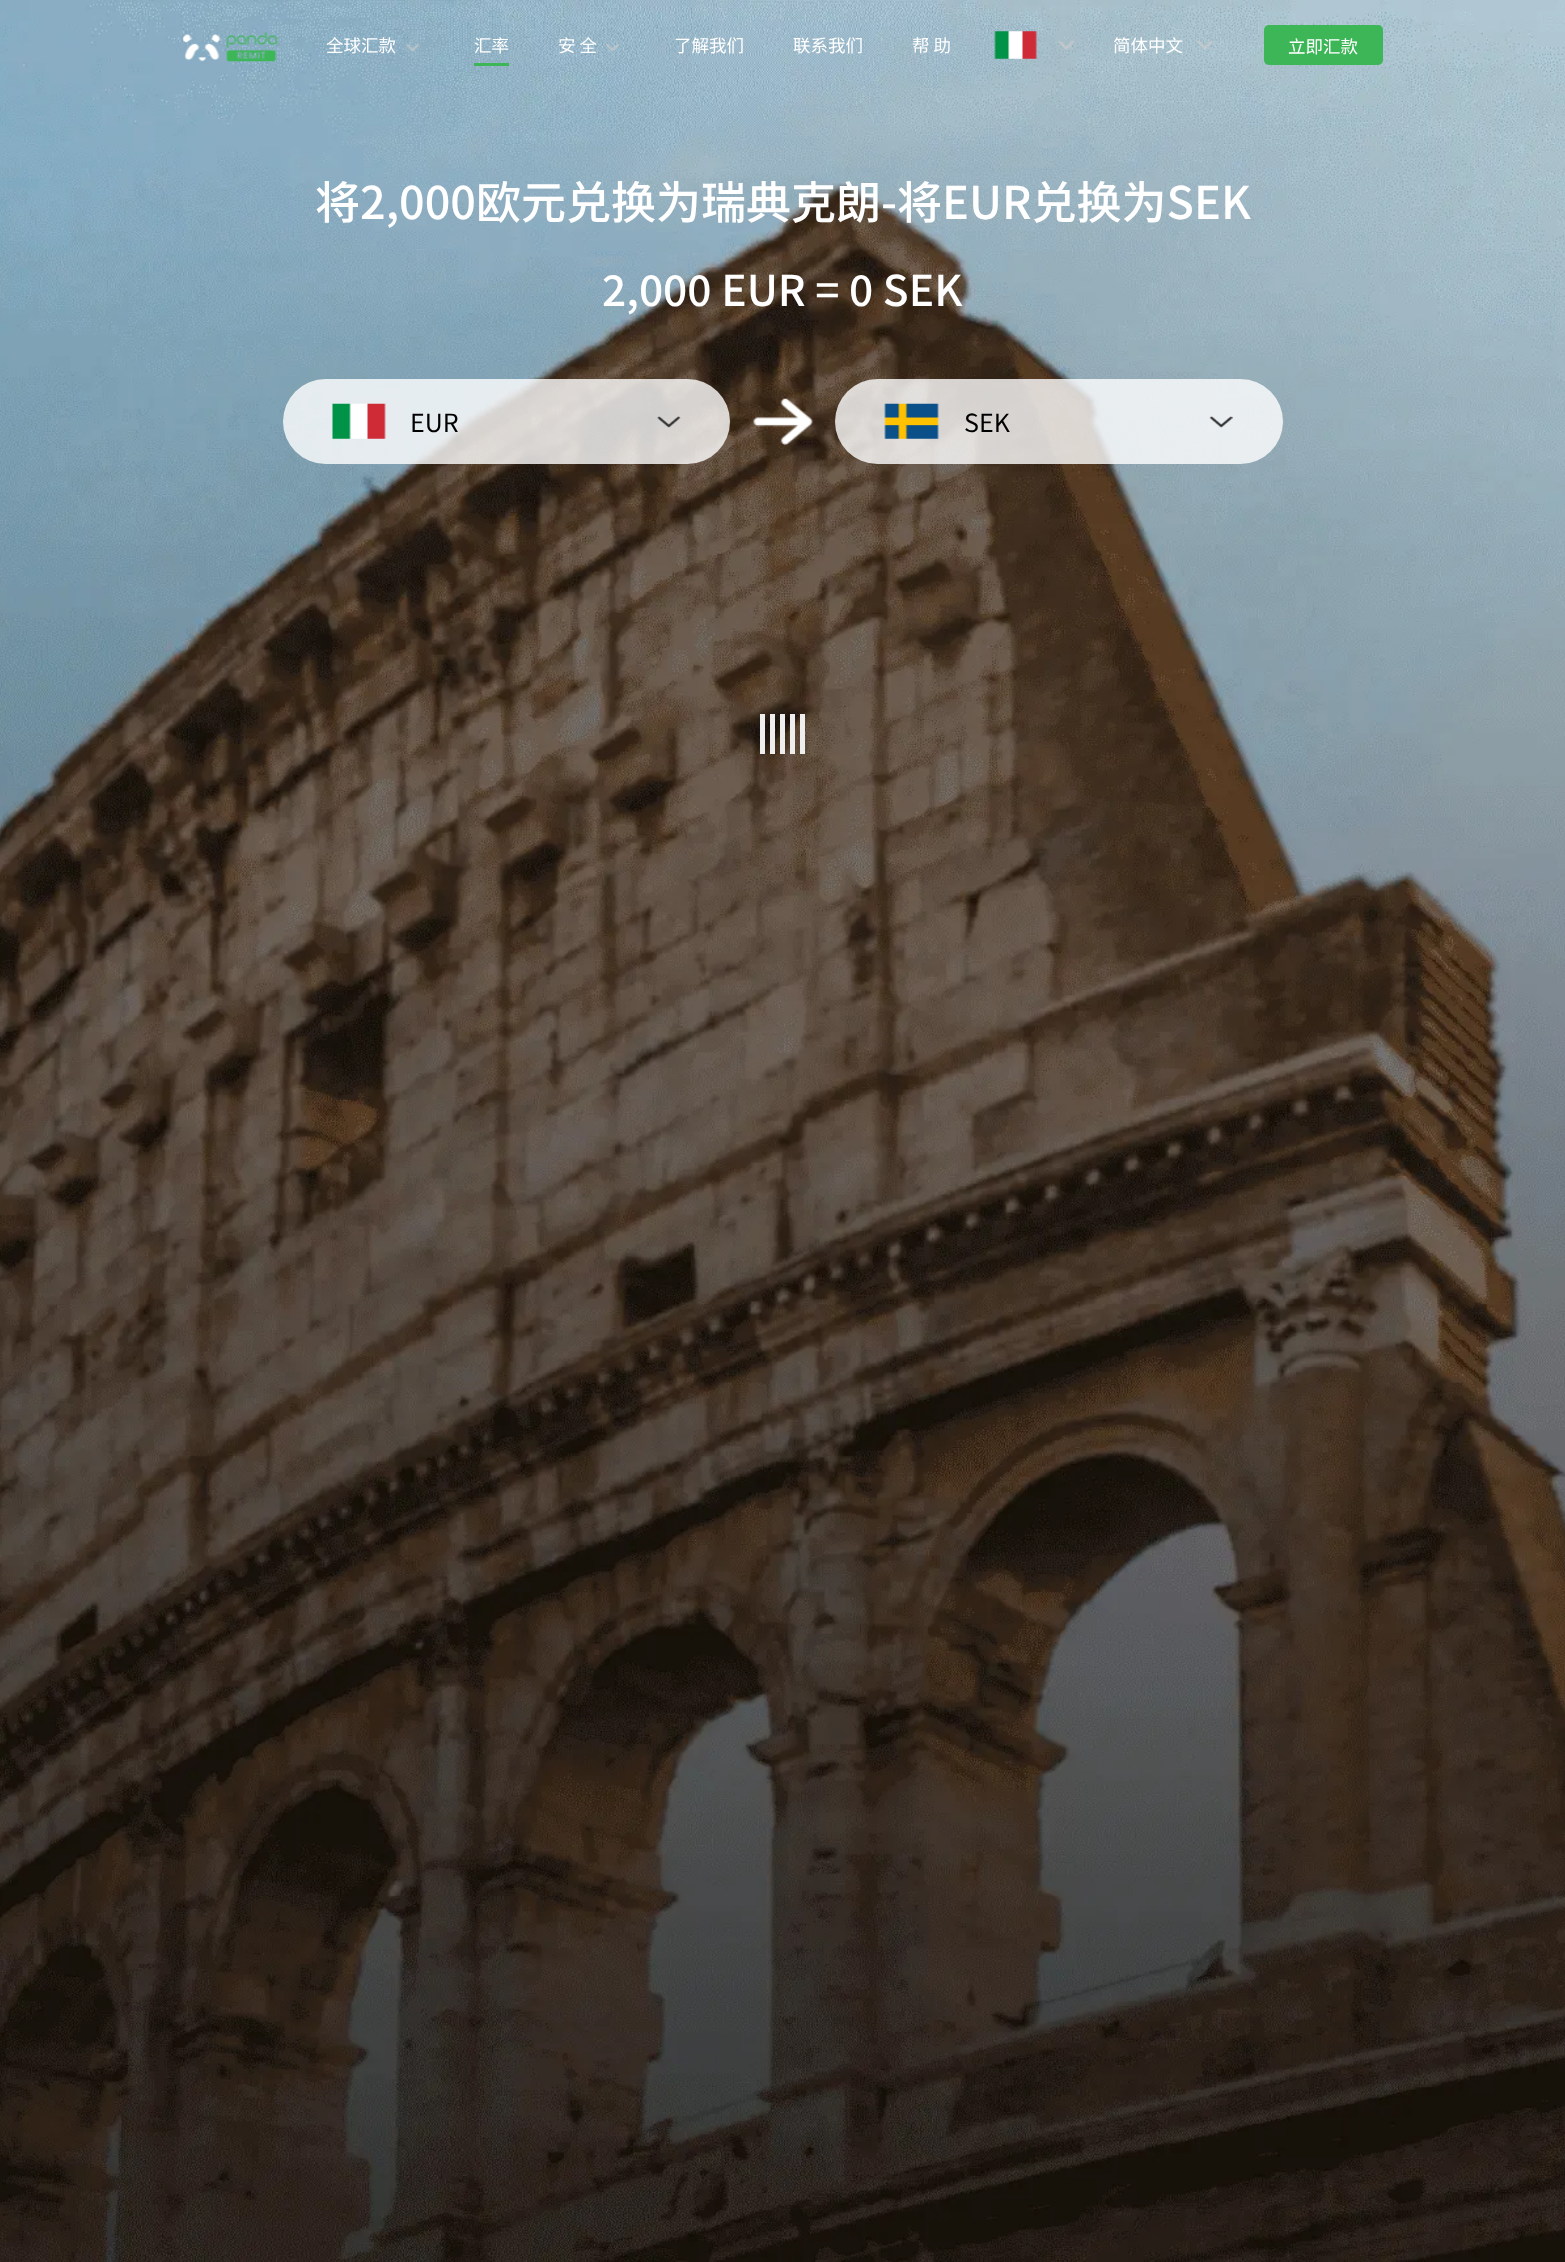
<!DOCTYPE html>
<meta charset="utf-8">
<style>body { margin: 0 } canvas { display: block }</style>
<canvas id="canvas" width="1565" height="2262"></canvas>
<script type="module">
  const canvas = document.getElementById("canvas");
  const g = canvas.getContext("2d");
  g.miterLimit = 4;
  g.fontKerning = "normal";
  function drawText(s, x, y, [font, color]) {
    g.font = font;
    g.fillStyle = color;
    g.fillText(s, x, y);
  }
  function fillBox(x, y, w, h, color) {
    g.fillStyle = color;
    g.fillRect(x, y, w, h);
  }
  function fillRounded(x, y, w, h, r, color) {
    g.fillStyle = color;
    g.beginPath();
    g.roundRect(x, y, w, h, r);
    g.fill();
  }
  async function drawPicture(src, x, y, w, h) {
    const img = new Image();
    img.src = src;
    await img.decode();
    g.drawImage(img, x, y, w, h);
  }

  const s1 = ["17.5px Noto Sans CJK SC", "#FFFFFF"];
  const s2 = ["500 45px Noto Sans CJK SC", "#FFFFFF"];
  const s3 = ["500 42.5px Noto Sans CJK SC", "#FFFFFF"];
  const s4 = ["25px Noto Sans CJK SC", "#000000"];

  fillBox(0, 0, 1565, 2262, "#FFFFFF");
  await drawPicture("pic1.png", 0, 0, 1565, 2262);
  await drawPicture("pic2.png", 183, 32, 95, 30);
  drawText("全球汇款", 326, 52, s1);
  await drawPicture("pic3.png", 405, 43, 15, 9);
  drawText("汇率", 474, 52, s1);
  fillBox(474, 63, 35, 3, "#3DB657");
  drawText("安 全", 558, 52, s1);
  await drawPicture("pic4.png", 606, 43, 14, 9);
  drawText("了解我们", 674, 52, s1);
  drawText("联系我们", 793, 52, s1);
  drawText("帮 助", 912, 52, s1);
  await drawPicture("pic5.png", 994, 31, 43, 28);
  await drawPicture("pic6.png", 1058, 40, 17, 10);
  drawText("简体中文", 1113, 52, s1);
  await drawPicture("pic7.png", 1197, 40, 16, 10);
  fillRounded(1264, 25, 119, 40, 5, "#3DB657");
  drawText("立即汇款", 1288, 53, s1);
  drawText("将2,000欧元兑换为瑞典克朗-将EUR兑换为SEK", 315, 219, s2);
  drawText("2,000 EUR = 0 SEK", 602, 306, s3);
  fillRounded(283, 379, 447, 85, 42.5, "rgba(255, 255, 255, 0.8)");
  await drawPicture("pic8.png", 332, 403, 54, 36);
  drawText("EUR", 410, 432, s4);
  await drawPicture("pic9.png", 657, 416, 24, 12);
  await drawPicture("pic10.png", 753, 398, 60, 47);
  fillRounded(835, 379, 448, 85, 42.5, "rgba(255, 255, 255, 0.8)");
  await drawPicture("pic11.png", 884, 403, 55, 36);
  drawText("SEK", 964, 432, s4);
  await drawPicture("pic12.png", 1209, 416, 24, 12);
  fillBox(760, 714, 5, 40, "#EEEEEE");
  fillBox(770, 714, 5, 40, "#EEEEEE");
  fillBox(780, 714, 5, 40, "#EEEEEE");
  fillBox(790, 714, 5, 40, "#EEEEEE");
  fillBox(800, 714, 5, 40, "#EEEEEE");
</script>
